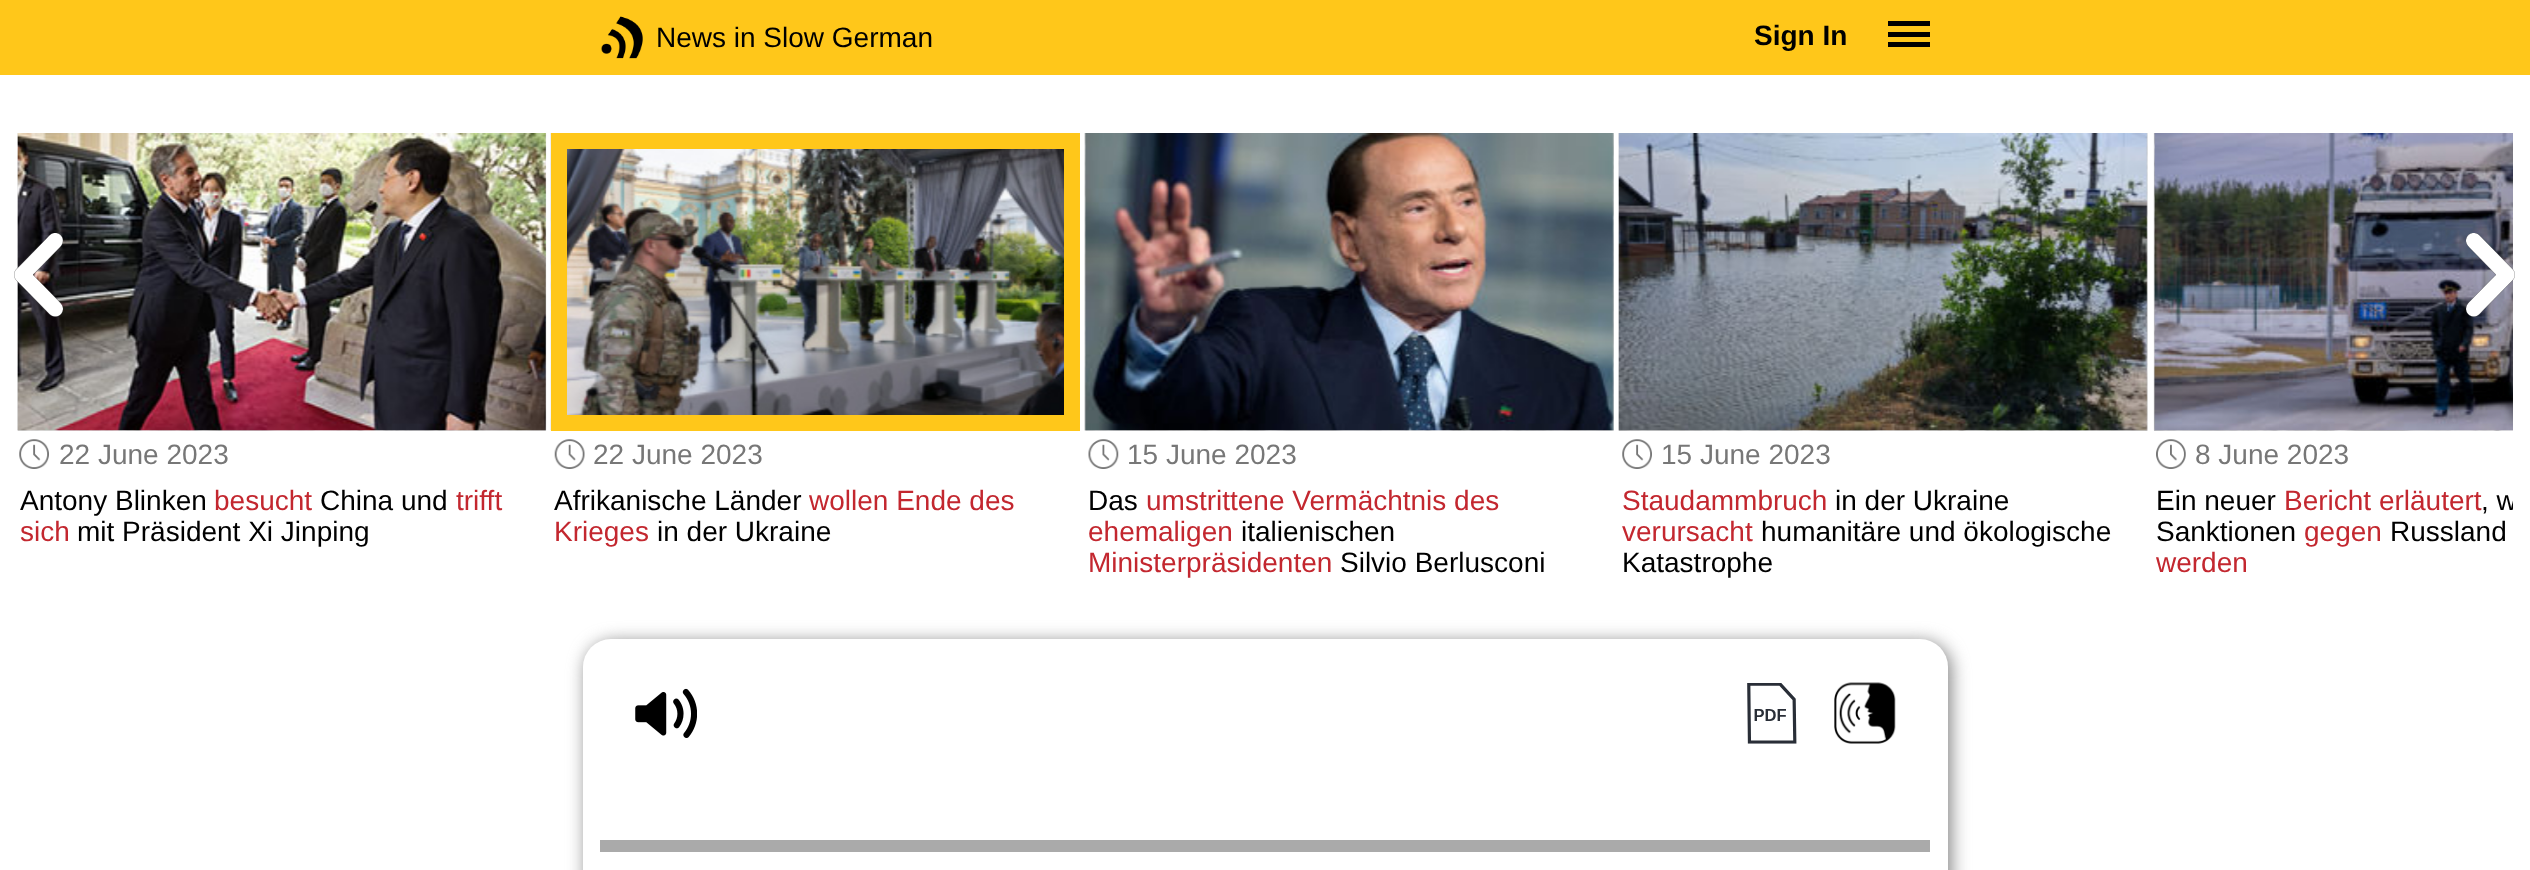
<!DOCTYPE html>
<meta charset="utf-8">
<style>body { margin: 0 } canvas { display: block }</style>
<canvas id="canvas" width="2530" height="870"></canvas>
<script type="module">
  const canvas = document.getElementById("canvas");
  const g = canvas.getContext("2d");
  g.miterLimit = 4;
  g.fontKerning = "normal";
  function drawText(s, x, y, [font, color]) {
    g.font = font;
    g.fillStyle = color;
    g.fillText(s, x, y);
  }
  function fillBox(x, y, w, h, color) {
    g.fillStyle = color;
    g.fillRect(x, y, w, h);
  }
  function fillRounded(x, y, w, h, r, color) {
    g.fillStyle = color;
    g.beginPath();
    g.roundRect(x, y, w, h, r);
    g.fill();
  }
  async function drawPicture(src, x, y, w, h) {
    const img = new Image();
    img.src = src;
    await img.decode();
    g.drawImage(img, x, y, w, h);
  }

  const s1 = ["28px Liberation Sans", "#000000"];
  const s2 = ["bold 28px Liberation Sans", "#000000"];
  const s3 = ["28px Liberation Sans", "#777777"];
  const s4 = ["28px Liberation Sans", "#C3272F"];

  fillBox(0, 0, 2530, 870, "#FFFFFF");
  fillBox(0, 0, 2530, 75, "#FFC71A");
  await drawPicture("pic1.png", 601, 16, 42, 43);
  drawText("News in Slow German", 656, 47, s1);
  drawText("Sign In", 1754, 45, s2);
  fillBox(1888, 21, 42, 5, "#000000");
  fillBox(1888, 32, 42, 5, "#000000");
  fillBox(1888, 42, 42, 5, "#000000");
  fillBox(18, 133, 528, 298, "#FAFAFA");
  await drawPicture("pic4.png", 17, 133, 529, 298);
  await drawPicture("pic5.png", 17, 133, 530, 298);
  await drawPicture("pic2.png", 14, 233, 49, 84);
  await drawPicture("pic15.png", 2154, 133, 359, 298);
  await drawPicture("pic16.png", 2153, 133, 360, 298);
  await drawPicture("pic3.png", 2466, 233, 49, 84);
  await drawPicture("pic6.png", 19, 439, 30, 30);
  drawText("22 June 2023", 59, 464, s3);
  drawText("Antony Blinken", 20, 510, s1);
  drawText("besucht", 214, 510, s4);
  drawText("China und", 320, 510, s1);
  drawText("trifft", 456, 510, s4);
  drawText("sich", 20, 541, s4);
  drawText("mit Präsident Xi Jinping", 77, 541, s1);
  await drawPicture("pic7.png", 550, 133, 1, 298);
  await drawPicture("pic8.png", 550, 133, 514, 297);
  g.strokeStyle = "#FFC71A";
  g.lineWidth = 16;
  g.strokeRect(559, 141, 513, 282);
  await drawPicture("pic9.png", 554, 439, 31, 30);
  drawText("22 June 2023", 593, 464, s3);
  drawText("Afrikanische Länder", 554, 510, s1);
  drawText("wollen Ende des", 809, 510, s4);
  drawText("Krieges", 554, 541, s4);
  drawText("in der Ukraine", 657, 541, s1);
  fillBox(1085, 133, 529, 298, "#FAFAFA");
  await drawPicture("pic10.png", 1084, 133, 530, 298);
  await drawPicture("pic11.png", 1084, 133, 530, 298);
  await drawPicture("pic12.png", 1088, 439, 31, 30);
  drawText("15 June 2023", 1127, 464, s3);
  drawText("Das", 1088, 510, s1);
  drawText("umstrittene Vermächtnis des", 1146, 510, s4);
  drawText("ehemaligen", 1088, 541, s4);
  drawText("italienischen", 1241, 541, s1);
  drawText("Ministerpräsidenten", 1088, 572, s4);
  drawText("Silvio Berlusconi", 1340, 572, s1);
  await drawPicture("pic13.png", 1618, 133, 530, 298);
  await drawPicture("pic14.png", 1618, 133, 530, 298);
  await drawPicture("pic6.png", 1622, 439, 30, 30);
  drawText("15 June 2023", 1661, 464, s3);
  drawText("Staudammbruch", 1622, 510, s4);
  drawText("in der Ukraine", 1835, 510, s1);
  drawText("verursacht", 1622, 541, s4);
  drawText("humanitäre und ökologische", 1761, 541, s1);
  drawText("Katastrophe", 1622, 572, s1);
  await drawPicture("pic17.png", 2156, 439, 30, 30);
  drawText("8 June 2023", 2195, 464, s3);
  drawText("Ein neuer", 2156, 510, s1);
  drawText("Bericht erläutert", 2284, 510, s4);
  g.save();
  g.beginPath();
  g.rect(2156, 485, 357, 93);
  g.clip();
  drawText(", w", 2481, 510, s1);
  g.restore();
  drawText("Sanktionen", 2156, 541, s1);
  drawText("gegen", 2304, 541, s4);
  drawText("Russland", 2390, 541, s1);
  drawText("werden", 2156, 572, s4);
  g.fillStyle = "#808080";
  g.filter = "blur(9px)";
  g.beginPath();
  g.roundRect(586, 642, 1365, 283, 28);
  g.fill();
  g.filter = "none";
  fillRounded(583, 639, 1365, 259, 28, "#FFFFFF");
  await drawPicture("pic18.png", 635, 688, 62, 50);
  await drawPicture("pic19.png", 1747, 683, 50, 61);
  await drawPicture("pic20.png", 1834, 682, 62, 62);
  fillBox(600, 840, 1330, 12, "#AAAAAA");
</script>
